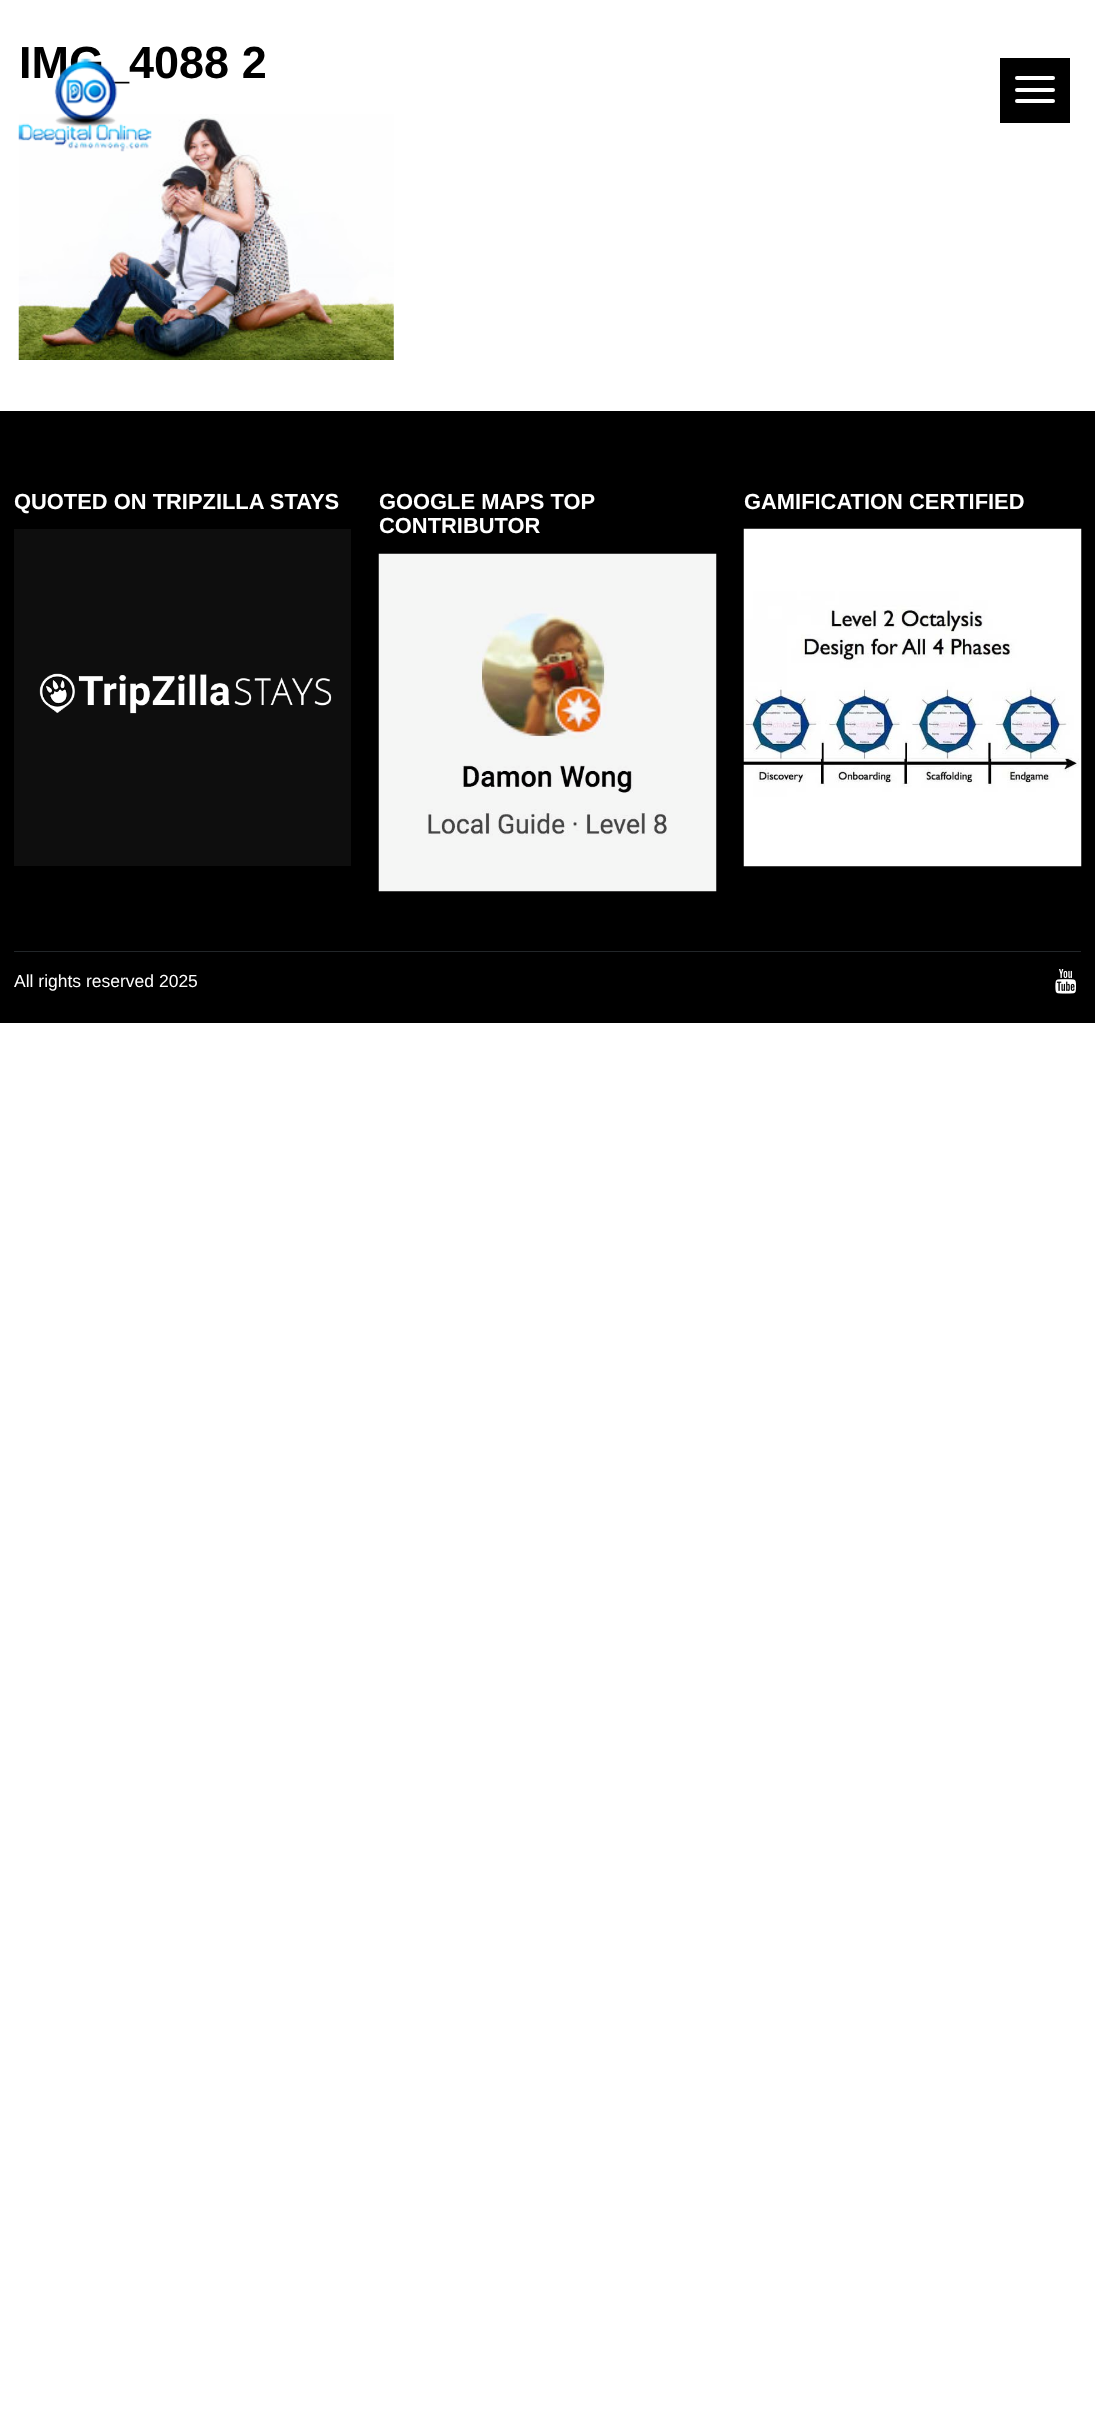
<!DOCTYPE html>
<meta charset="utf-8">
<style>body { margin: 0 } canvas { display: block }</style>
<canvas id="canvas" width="1095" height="2412"></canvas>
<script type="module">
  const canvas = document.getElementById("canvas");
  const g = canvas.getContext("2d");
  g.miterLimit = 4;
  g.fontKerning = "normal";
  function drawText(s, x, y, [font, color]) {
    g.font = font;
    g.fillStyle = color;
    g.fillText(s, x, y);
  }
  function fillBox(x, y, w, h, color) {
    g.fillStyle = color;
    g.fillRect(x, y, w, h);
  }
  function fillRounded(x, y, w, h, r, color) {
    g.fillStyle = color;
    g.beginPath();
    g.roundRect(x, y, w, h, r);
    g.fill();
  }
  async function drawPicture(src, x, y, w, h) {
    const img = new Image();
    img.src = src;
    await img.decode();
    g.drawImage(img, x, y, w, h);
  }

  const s1 = ["bold 45px Liberation Sans", "#000000"];
  const s2 = ["bold 21.9px Liberation Sans", "#FFFFFF"];
  const s3 = ["17.5px Liberation Sans", "#FFFFFF"];

  fillBox(0, 0, 1095, 2412, "#FFFFFF");
  drawText("IMG_4088 2", 19, 78, s1);
  await drawPicture("pic1.png", 18, 114, 376, 246);
  await drawPicture("pic2.png", 18, 58, 134, 94);
  fillBox(1000, 58, 70, 65, "#000000");
  fillRounded(1015, 88, 40, 4, 2, "#FFFFFF");
  fillRounded(1015, 76, 40, 4, 2, "#FFFFFF");
  fillRounded(1015, 99, 40, 4, 2, "#FFFFFF");
  fillBox(0, 411, 1095, 612, "#000000");
  fillBox(14, 951, 1067, 1, "#222629");
  drawText("QUOTED ON TRIPZILLA STAYS", 14, 509, s2);
  await drawPicture("pic3.png", 14, 529, 337, 337);
  drawText("GOOGLE MAPS TOP", 379, 509, s2);
  drawText("CONTRIBUTOR", 379, 533, s2);
  await drawPicture("pic4.png", 378, 553, 339, 339);
  drawText("GAMIFICATION CERTIFIED", 744, 509, s2);
  await drawPicture("pic5.png", 743, 528, 339, 339);
  drawText("All rights reserved 2025", 14, 987, s3);
  await drawPicture("pic6.png", 1055, 969, 21, 25);
</script>
